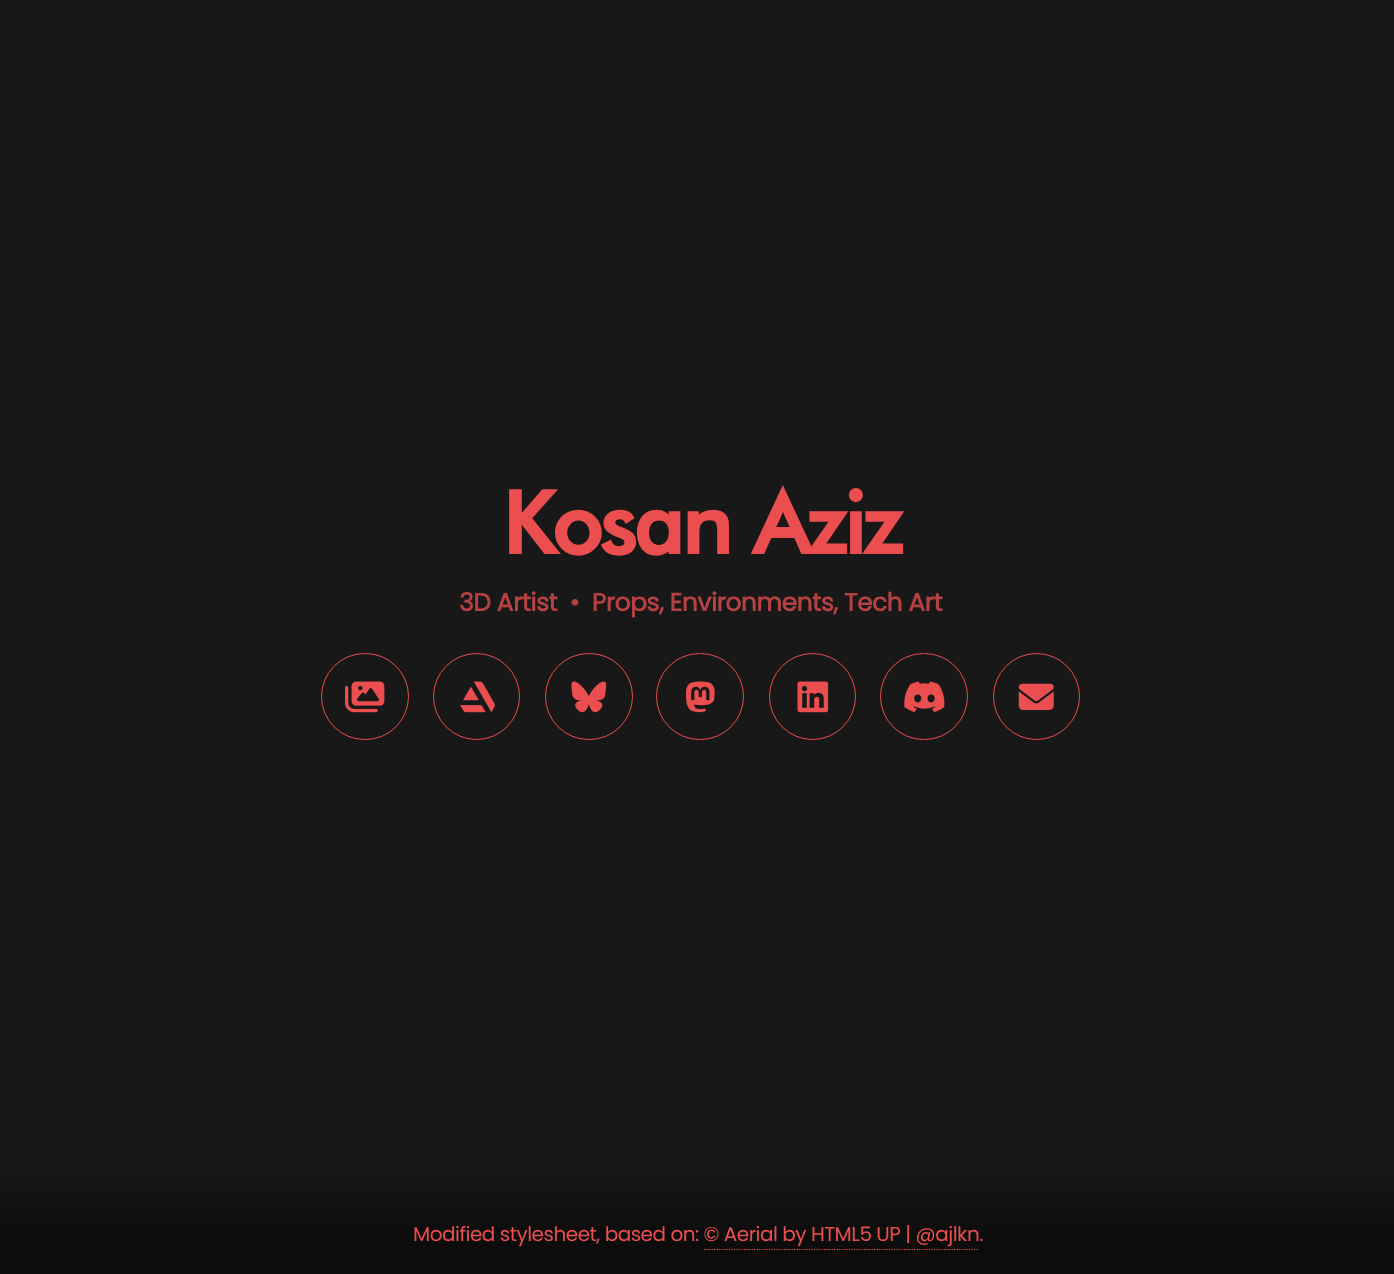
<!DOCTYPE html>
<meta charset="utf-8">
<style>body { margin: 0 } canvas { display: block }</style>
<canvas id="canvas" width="1394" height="1274"></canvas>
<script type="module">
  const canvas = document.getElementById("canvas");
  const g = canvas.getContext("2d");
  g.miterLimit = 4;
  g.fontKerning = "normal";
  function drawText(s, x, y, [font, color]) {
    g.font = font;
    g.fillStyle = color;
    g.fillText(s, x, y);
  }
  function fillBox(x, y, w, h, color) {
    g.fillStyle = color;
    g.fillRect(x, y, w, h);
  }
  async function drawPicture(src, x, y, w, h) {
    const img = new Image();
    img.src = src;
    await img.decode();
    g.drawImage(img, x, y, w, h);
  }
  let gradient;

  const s1 = ["bold 87px Futura", "#EA4E4E"];
  const s2 = ["bold 25px Poppins", "#B64141"];
  const s3 = ["20px Poppins", "#EA4E4E"];

  fillBox(0, 0, 1394, 1274, "#191818");
  g.letterSpacing = "-3px";
  drawText("Kosan Aziz", 502, 554, s1);
  g.letterSpacing = "-0.5px";
  drawText("3D Artist  •  Props, Environments, Tech Art", 459, 611, s2);
  g.beginPath();
  g.roundRect(321.5, 653.5, 87, 86, 43);
  g.strokeStyle = "#EA4E4E";
  g.stroke();
  await drawPicture("pic1.png", 345, 681, 40, 32);
  g.beginPath();
  g.arc(476.5, 696.5, 43, 0, Math.PI * 2);
  g.stroke();
  await drawPicture("pic2.png", 460, 681, 35, 32);
  g.beginPath();
  g.roundRect(545.5, 653.5, 87, 86, 43);
  g.stroke();
  await drawPicture("pic3.png", 571, 681, 36, 32);
  g.beginPath();
  g.roundRect(656.5, 653.5, 87, 86, 43);
  g.stroke();
  await drawPicture("pic4.png", 686, 681, 29, 32);
  g.beginPath();
  g.arc(812.5, 696.5, 43, 0, Math.PI * 2);
  g.stroke();
  await drawPicture("pic5.png", 797, 681, 32, 32);
  g.beginPath();
  g.roundRect(880.5, 653.5, 87, 86, 43);
  g.stroke();
  await drawPicture("pic6.png", 904, 681, 41, 32);
  g.beginPath();
  g.arc(1036.5, 696.5, 43, 0, Math.PI * 2);
  g.stroke();
  await drawPicture("pic7.png", 1018, 683, 36, 27);
  gradient = g.createLinearGradient(0, 1155, 0, 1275);
  gradient.addColorStop(0, "#191818");
  gradient.addColorStop(0.75, "#0D0C0C");
  g.fillStyle = gradient;
  g.fillRect(0, 1174, 1394, 100);
  drawText("Modified stylesheet, based on: © Aerial by HTML5 UP | @ajlkn.", 413, 1241, s3);
  g.beginPath();
  g.moveTo(704, 1249.5);
  g.lineTo(979, 1249.5);
  g.lineWidth = 1.2;
  g.setLineDash([1.25, 1.25]);
  g.stroke();
</script>
